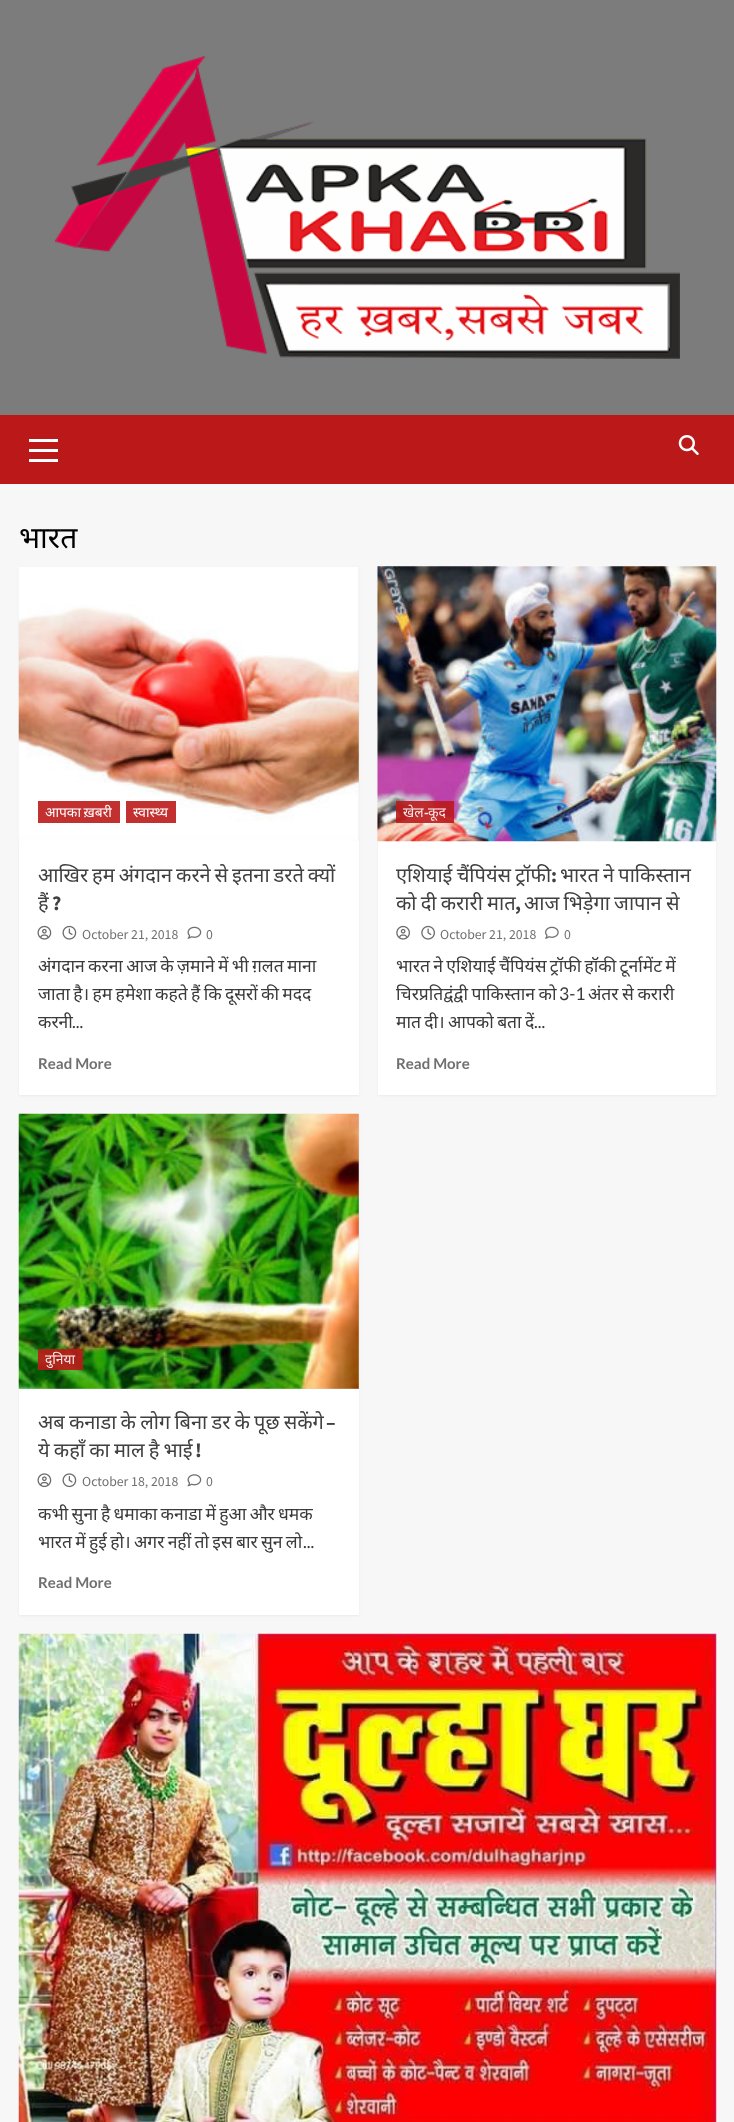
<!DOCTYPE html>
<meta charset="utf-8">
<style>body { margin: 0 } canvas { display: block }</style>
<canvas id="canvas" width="734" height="2122"></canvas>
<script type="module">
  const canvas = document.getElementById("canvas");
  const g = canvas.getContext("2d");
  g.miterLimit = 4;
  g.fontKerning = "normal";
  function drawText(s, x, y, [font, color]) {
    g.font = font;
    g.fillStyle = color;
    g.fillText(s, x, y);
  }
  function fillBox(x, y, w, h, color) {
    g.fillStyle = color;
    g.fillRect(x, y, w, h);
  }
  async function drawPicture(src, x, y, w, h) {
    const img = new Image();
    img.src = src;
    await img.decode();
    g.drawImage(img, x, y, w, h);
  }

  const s1 = ["30px Noto Sans", "#000000"];
  const s2 = ["13.75px Noto Sans", "#FFFFFF"];
  const s3 = ["20px Noto Sans", "#404040"];
  const s4 = ["bold 20px Source Sans Pro", "#404040"];
  const s5 = ["13.75px Source Sans Pro", "#707070"];
  const s6 = ["17.5px Noto Sans", "#3A3A3A"];
  const s7 = ["17.5px Lato", "#3A3A3A"];
  const s8 = ["bold 15px Lato", "#707070"];
  const s9 = ["13.75px Noto Sans", "#F8E9E9"];
  const s10 = ["bold 13.75px Source Sans Pro", "#F8E9E9"];

  fillBox(0, 0, 734, 2122, "#F7F7F7");
  fillBox(0, 0, 734, 415, "#7C7C7C");
  await drawPicture("pic1.png", 55, 56, 625, 303);
  fillBox(0, 415, 734, 69, "#BB1919");
  fillBox(29, 449, 29, 3, "#FFFFFF");
  fillBox(29, 439, 29, 3, "#FFFFFF");
  fillBox(29, 459, 29, 3, "#FFFFFF");
  await drawPicture("pic2.png", 678, 435, 21, 20);
  drawText("भारत", 19, 548, s1);
  g.fillStyle = "rgba(0, 0, 0, 0.05)";
  g.filter = "blur(1px)";
  g.beginPath();
  g.rect(19, 568, 340, 528);
  g.fill();
  g.filter = "none";
  fillBox(19, 841, 340, 254, "#FFFFFF");
  fillBox(19, 566, 340, 275, "#D8D8D8");
  await drawPicture("pic3.png", 18, 566, 341, 275);
  fillBox(38, 801, 82, 22, "#C23030");
  g.wordSpacing = "-1px";
  drawText("आपका ख़बरी", 45, 817, s2);
  fillBox(126, 801, 50, 22, "#C23030");
  g.wordSpacing = "0px";
  drawText("स्वास्थ्य", 133, 817, s2);
  g.wordSpacing = "-1.25px";
  drawText("आखिर हम अंगदान करने से इतना डरते क्यों", 38, 882, s3);
  g.wordSpacing = "0px";
  drawText("हैं", 38, 910, s3);
  drawText("?", 52, 910, s4);
  await drawPicture("pic4.png", 37, 925, 15, 15);
  await drawPicture("pic5.png", 62, 925, 15, 15);
  drawText("October 21, 2018", 82, 939, s5);
  await drawPicture("pic6.png", 187, 926, 15, 13);
  drawText("0", 206, 939, s5);
  g.wordSpacing = "-1.25px";
  drawText("अंगदान करना आज के ज़माने में भी ग़लत माना", 38, 972, s6);
  drawText("जाता है। हम हमेशा कहते हैं कि दूसरों की मदद", 38, 1000, s6);
  g.wordSpacing = "0px";
  drawText("करनी", 38, 1028, s6);
  drawText("...", 72, 1028, s7);
  drawText("Read More", 38, 1069, s8);
  g.fillStyle = "rgba(0, 0, 0, 0.05)";
  g.filter = "blur(1px)";
  g.beginPath();
  g.rect(378, 568, 338, 528);
  g.fill();
  g.filter = "none";
  fillBox(378, 566, 338, 529, "#FFFFFF");
  await drawPicture("pic7.png", 377, 566, 340, 276);
  fillBox(396, 801, 58, 22, "rgba(187, 25, 25, 0.9)");
  drawText("खेल", 403, 817, s9);
  drawText("-", 424, 817, s10);
  drawText("कूद", 428, 817, s9);
  g.wordSpacing = "-1px";
  drawText("एशियाई चैंपियंस ट्रॉफी", 396, 882, s3);
  g.wordSpacing = "0px";
  drawText(":", 551, 882, s4);
  g.wordSpacing = "-1px";
  drawText("भारत ने पाकिस्तान", 560, 882, s3);
  drawText("को दी करारी मात", 396, 910, s3);
  g.wordSpacing = "0px";
  drawText(",", 515, 910, s4);
  g.wordSpacing = "-1px";
  drawText("आज भिड़ेगा जापान से", 524, 910, s3);
  await drawPicture("pic8.png", 396, 925, 14, 15);
  await drawPicture("pic9.png", 421, 925, 14, 15);
  g.wordSpacing = "0px";
  drawText("October 21, 2018", 440, 939, s5);
  await drawPicture("pic10.png", 545, 926, 14, 13);
  drawText("0", 564, 939, s5);
  g.wordSpacing = "-1.25px";
  drawText("भारत ने एशियाई चैंपियंस ट्रॉफी हॉकी टूर्नामेंट में", 396, 972, s6);
  g.wordSpacing = "-1px";
  drawText("चिरप्रतिद्वंद्वी पाकिस्तान को", 396, 1000, s6);
  g.wordSpacing = "0px";
  drawText("3-1", 559, 1000, s7);
  g.wordSpacing = "-1px";
  drawText("अंतर से करारी", 588, 1000, s6);
  g.wordSpacing = "-1.25px";
  drawText("मात दी। आपको बता दें", 396, 1028, s6);
  g.wordSpacing = "0px";
  drawText("...", 534, 1028, s7);
  drawText("Read More", 396, 1069, s8);
  g.fillStyle = "rgba(0, 0, 0, 0.05)";
  g.filter = "blur(1px)";
  g.beginPath();
  g.rect(19, 1115, 340, 501);
  g.fill();
  g.filter = "none";
  fillBox(19, 1389, 340, 226, "#FFFFFF");
  fillBox(19, 1114, 340, 275, "#D8D8D8");
  await drawPicture("pic11.png", 18, 1113, 341, 276);
  fillBox(38, 1349, 45, 21, "rgba(187, 25, 25, 0.9)");
  drawText("दुनिया", 45, 1364, s9);
  g.wordSpacing = "-1px";
  drawText("अब कनाडा के लोग बिना डर के पूछ सकेंगे", 38, 1429, s3);
  g.wordSpacing = "0px";
  drawText("–", 326, 1429, s4);
  g.wordSpacing = "-1px";
  drawText("ये कहाँ का माल है भाई", 38, 1457, s3);
  g.wordSpacing = "0px";
  drawText("!", 195, 1457, s4);
  await drawPicture("pic12.png", 37, 1473, 15, 15);
  await drawPicture("pic13.png", 62, 1473, 15, 15);
  drawText("October 18, 2018", 82, 1486, s5);
  await drawPicture("pic14.png", 187, 1474, 15, 13);
  drawText("0", 206, 1486, s5);
  g.wordSpacing = "-1.25px";
  drawText("कभी सुना है धमाका कनाडा में हुआ और धमक", 38, 1520, s6);
  drawText("भारत में हुई हो। अगर नहीं तो इस बार सुन लो", 38, 1548, s6);
  g.wordSpacing = "0px";
  drawText("...", 303, 1548, s7);
  drawText("Read More", 38, 1588, s8);
  await drawPicture("pic15.png", 18, 1633, 699, 489);
</script>
